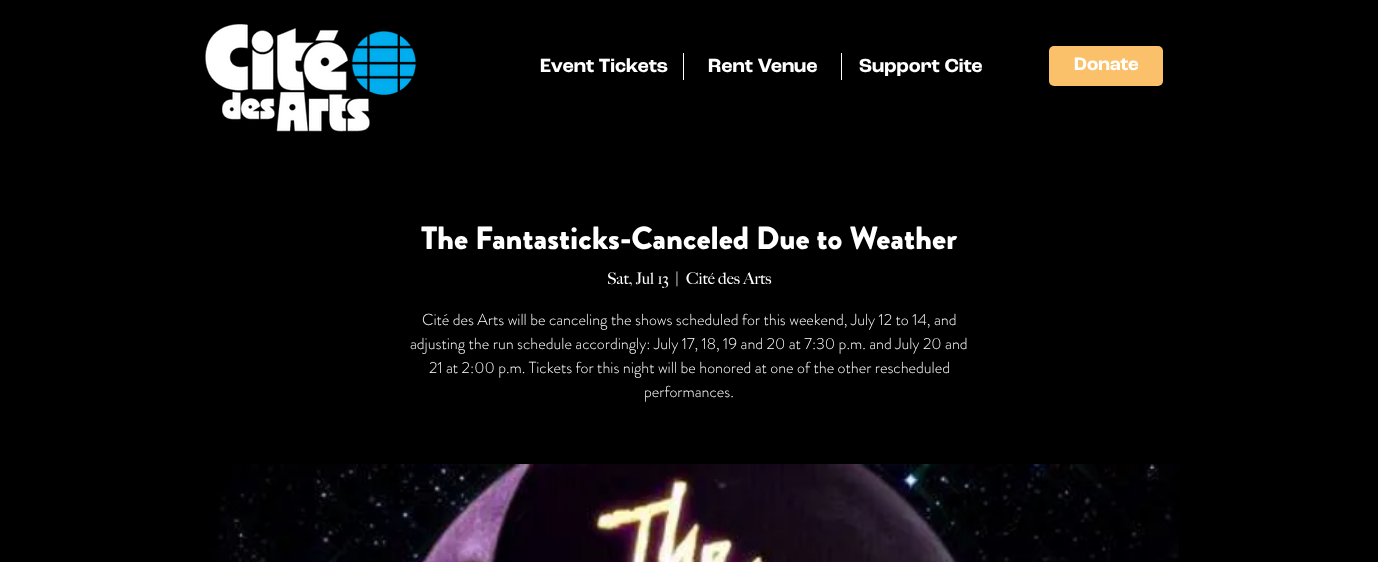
<!DOCTYPE html>
<meta charset="utf-8">
<style>body { margin: 0 } canvas { display: block }</style>
<canvas id="canvas" width="1378" height="562"></canvas>
<script type="module">
  const canvas = document.getElementById("canvas");
  const g = canvas.getContext("2d");
  g.miterLimit = 4;
  g.fontKerning = "normal";
  function drawText(s, x, y, [font, color]) {
    g.font = font;
    g.fillStyle = color;
    g.fillText(s, x, y);
  }
  function fillBox(x, y, w, h, color) {
    g.fillStyle = color;
    g.fillRect(x, y, w, h);
  }
  function fillRounded(x, y, w, h, r, color) {
    g.fillStyle = color;
    g.beginPath();
    g.roundRect(x, y, w, h, r);
    g.fill();
  }
  async function drawPicture(src, x, y, w, h) {
    const img = new Image();
    img.src = src;
    await img.decode();
    g.drawImage(img, x, y, w, h);
  }

  const s1 = ["bold 20px 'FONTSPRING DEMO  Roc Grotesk'", "#FFFFFF"];
  const s2 = ["bold 19px 'FONTSPRING DEMO  Roc Grotesk'", "#FFFFFF"];
  const s3 = ["900 32px Brandon Grotesque", "#FFFFFF"];
  const s4 = ["16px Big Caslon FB", "#FFFFFF"];
  const s5 = ["300 16px Brandon Grotesque", "#FFFFFF"];

  fillBox(0, 0, 1378, 562, "#000000");
  await drawPicture("pic1.png", 205, 24, 211, 108);
  drawText("Event Tickets", 540, 72, s1);
  fillBox(683, 53, 1, 27, "#FFFFFF");
  drawText("Rent Venue", 708, 72, s1);
  fillBox(841, 53, 1, 27, "#FFFFFF");
  drawText("Support Cite", 859, 72, s1);
  fillRounded(1049, 46, 114, 40, 5, "#FAC16A");
  drawText("Donate", 1074, 70, s2);
  drawText("The Fantasticks-Canceled Due to Weather", 421, 249, s3);
  drawText("Sat, Jul 13", 607, 284, s4);
  drawText("|", 675, 284, s4);
  drawText("Cité des Arts", 686, 284, s4);
  drawText("Cité des Arts will be canceling the shows scheduled for this weekend, July 12 to 14, and", 422, 325, s5);
  drawText("adjusting the run schedule accordingly: July 17, 18, 19 and 20 at 7:30 p.m. and July 20 and", 410, 349, s5);
  drawText("21 at 2:00 p.m. Tickets for this night will be honored at one of the other rescheduled", 429, 373, s5);
  drawText("performances.", 644, 397, s5);
  await drawPicture("pic2.png", 200, 464, 979, 98);
</script>
